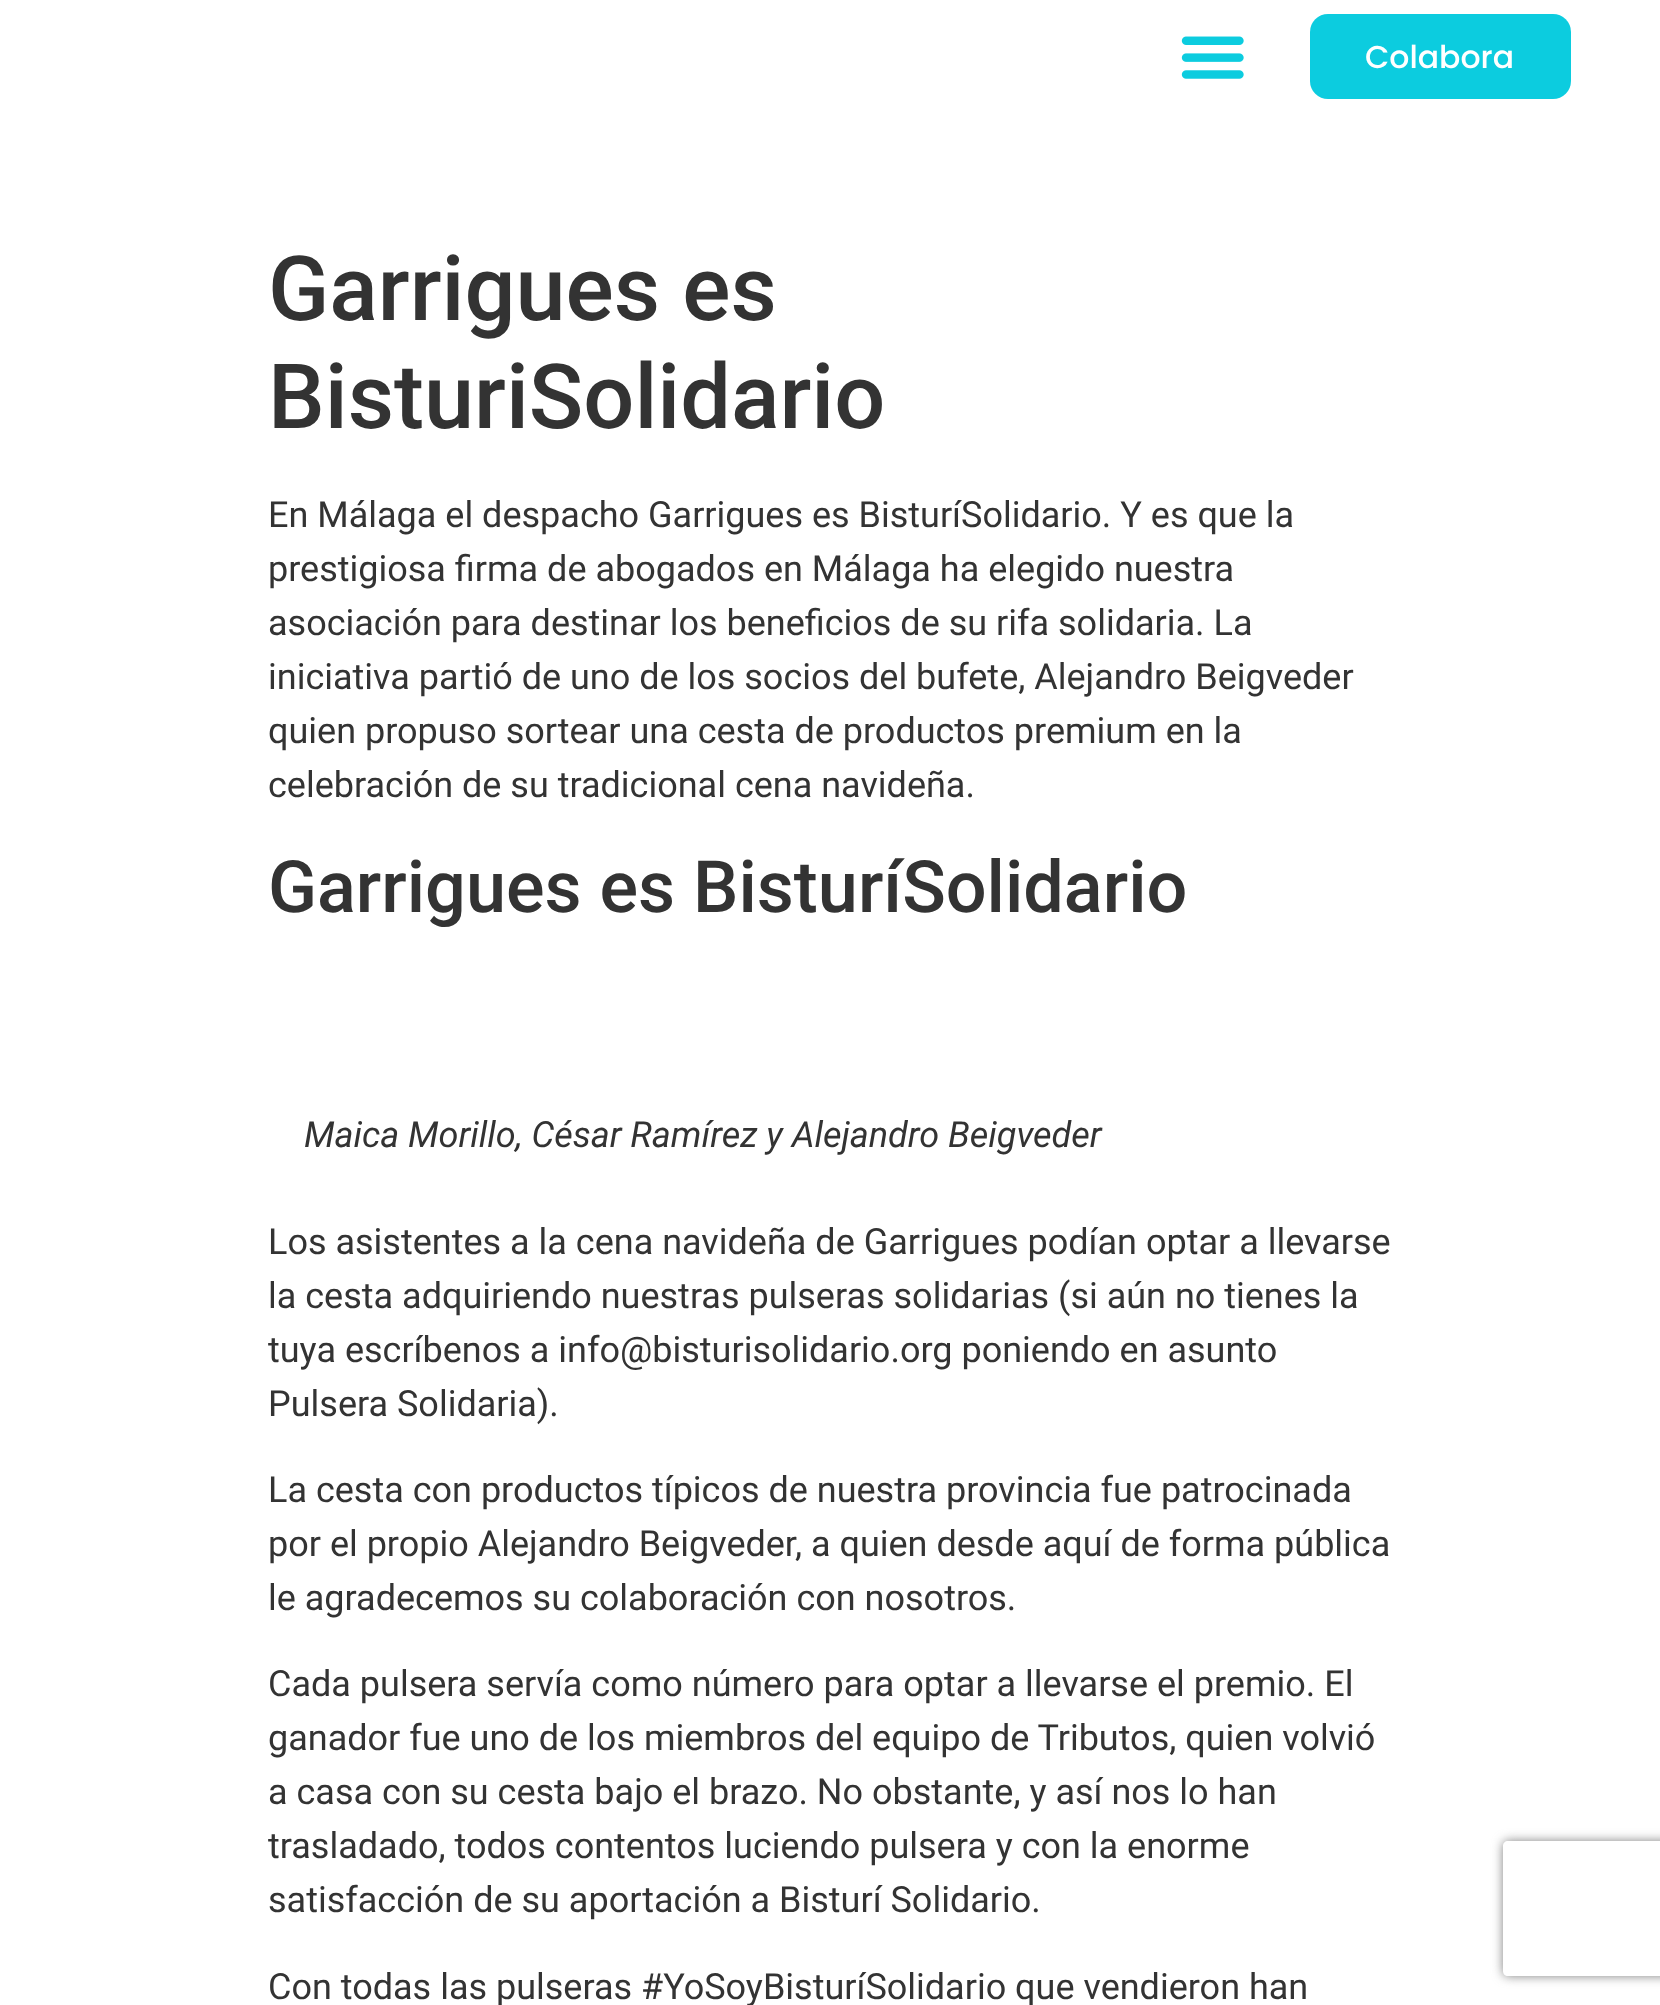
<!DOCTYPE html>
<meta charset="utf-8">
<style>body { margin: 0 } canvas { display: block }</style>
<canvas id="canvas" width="1660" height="2005"></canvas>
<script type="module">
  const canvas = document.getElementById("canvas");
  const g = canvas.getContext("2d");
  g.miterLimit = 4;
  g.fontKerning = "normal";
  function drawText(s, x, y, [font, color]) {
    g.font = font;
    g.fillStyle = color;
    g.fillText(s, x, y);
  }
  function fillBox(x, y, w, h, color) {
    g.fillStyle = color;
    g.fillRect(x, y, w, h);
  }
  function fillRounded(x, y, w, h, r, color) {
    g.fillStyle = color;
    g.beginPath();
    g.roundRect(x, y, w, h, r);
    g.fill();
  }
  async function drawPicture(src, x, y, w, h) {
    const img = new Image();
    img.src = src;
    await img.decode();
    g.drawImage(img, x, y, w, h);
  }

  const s1 = ["500 31.5px Poppins", "#FFFFFF"];
  const s2 = ["500 90px Roboto", "#333333"];
  const s3 = ["36px Roboto", "#333333"];
  const s4 = ["500 72px Roboto", "#333333"];
  const s5 = ["italic 36px Roboto", "#333333"];

  fillBox(0, 0, 1660, 2005, "#FFFFFF");
  await drawPicture("pic1.png", 1181, 36, 63, 43);
  fillRounded(1310, 14, 261, 85, 18, "#0CCCDF");
  drawText("Colabora", 1365, 68, s1);
  drawText("Garrigues es", 268, 320, s2);
  drawText("BisturiSolidario", 268, 428, s2);
  drawText("En Málaga el despacho Garrigues es BisturíSolidario. Y es que la", 268, 527, s3);
  drawText("prestigiosa firma de abogados en Málaga ha elegido nuestra", 268, 581, s3);
  drawText("asociación para destinar los beneficios de su rifa solidaria. La", 268, 635, s3);
  drawText("iniciativa partió de uno de los socios del bufete, Alejandro Beigveder", 268, 689, s3);
  drawText("quien propuso sortear una cesta de productos premium en la", 268, 743, s3);
  drawText("celebración de su tradicional cena navideña.", 268, 797, s3);
  drawText("Garrigues es BisturíSolidario", 268, 912, s4);
  drawText("Maica Morillo, César Ramírez y Alejandro Beigveder", 304, 1147, s5);
  drawText("Los asistentes a la cena navideña de Garrigues podían optar a llevarse", 268, 1254, s3);
  drawText("la cesta adquiriendo nuestras pulseras solidarias (si aún no tienes la", 268, 1308, s3);
  drawText("tuya escríbenos a info@bisturisolidario.org poniendo en asunto", 268, 1362, s3);
  drawText("Pulsera Solidaria).", 268, 1416, s3);
  drawText("La cesta con productos típicos de nuestra provincia fue patrocinada", 268, 1502, s3);
  drawText("por el propio Alejandro Beigveder, a quien desde aquí de forma pública", 268, 1556, s3);
  drawText("le agradecemos su colaboración con nosotros.", 268, 1610, s3);
  drawText("Cada pulsera servía como número para optar a llevarse el premio. El", 268, 1696, s3);
  drawText("ganador fue uno de los miembros del equipo de Tributos, quien volvió", 268, 1750, s3);
  drawText("a casa con su cesta bajo el brazo. No obstante, y así nos lo han", 268, 1804, s3);
  drawText("trasladado, todos contentos luciendo pulsera y con la enorme", 268, 1858, s3);
  drawText("satisfacción de su aportación a Bisturí Solidario.", 268, 1912, s3);
  drawText("Con todas las pulseras #YoSoyBisturíSolidario que vendieron han", 268, 1999, s3);
  g.save();
  g.beginPath();
  g.moveTo(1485, 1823);
  g.lineTo(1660, 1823);
  g.lineTo(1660, 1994);
  g.lineTo(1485, 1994);
  g.closePath();
  g.moveTo(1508, 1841);
  g.lineTo(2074, 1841);
  g.bezierCurveTo(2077, 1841, 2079, 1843, 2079, 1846);
  g.lineTo(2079, 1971);
  g.bezierCurveTo(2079, 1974, 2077, 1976, 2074, 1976);
  g.lineTo(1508, 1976);
  g.bezierCurveTo(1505, 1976, 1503, 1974, 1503, 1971);
  g.lineTo(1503, 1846);
  g.bezierCurveTo(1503, 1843, 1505, 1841, 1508, 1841);
  g.closePath();
  g.clip("evenodd");
  g.fillStyle = "#808080";
  g.filter = "blur(5.5px)";
  g.beginPath();
  g.roundRect(1503, 1841, 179, 135, 5);
  g.fill();
  g.filter = "none";
  g.restore();
</script>
